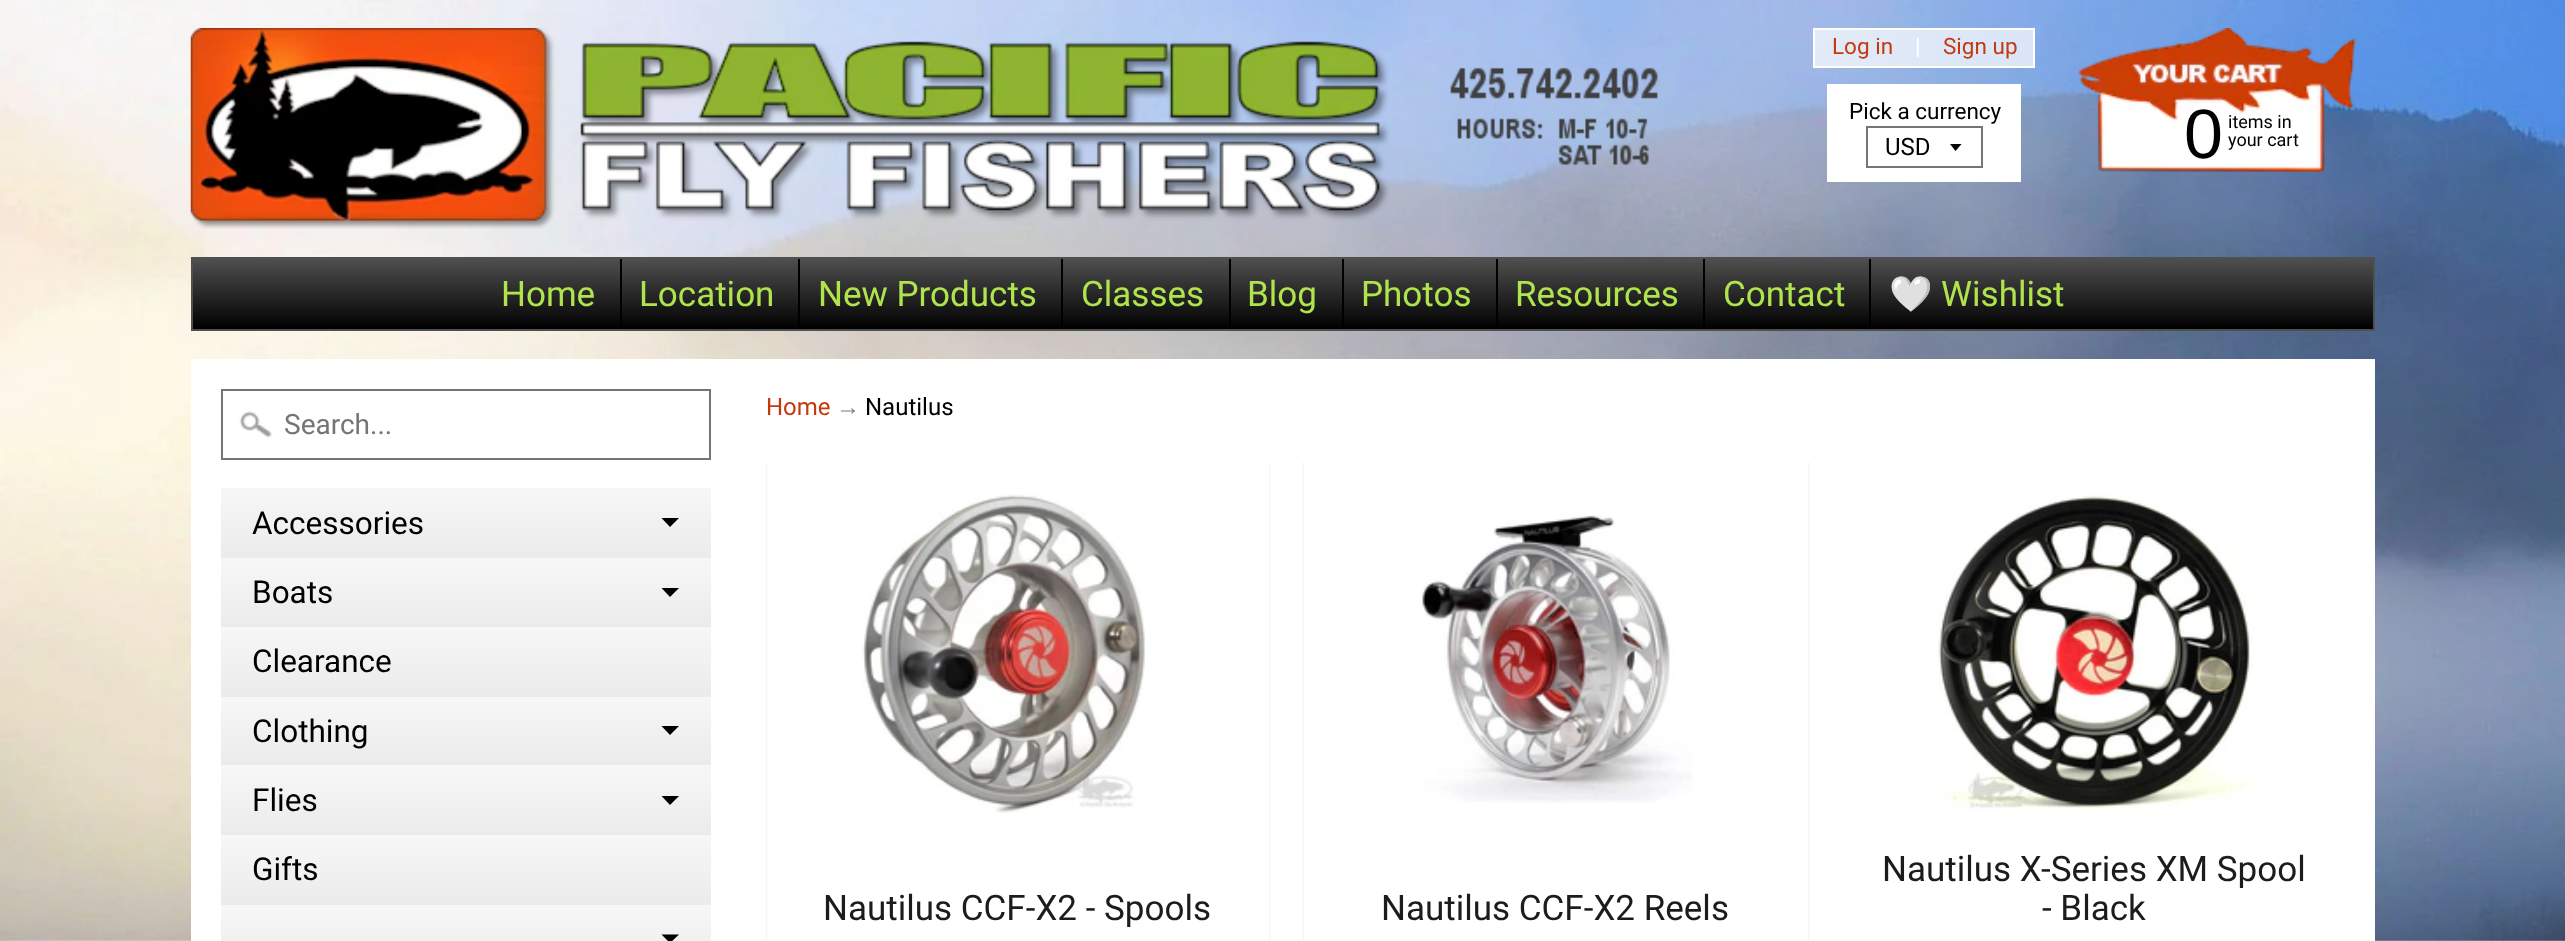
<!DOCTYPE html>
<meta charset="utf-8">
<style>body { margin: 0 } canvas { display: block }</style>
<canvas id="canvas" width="2565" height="941"></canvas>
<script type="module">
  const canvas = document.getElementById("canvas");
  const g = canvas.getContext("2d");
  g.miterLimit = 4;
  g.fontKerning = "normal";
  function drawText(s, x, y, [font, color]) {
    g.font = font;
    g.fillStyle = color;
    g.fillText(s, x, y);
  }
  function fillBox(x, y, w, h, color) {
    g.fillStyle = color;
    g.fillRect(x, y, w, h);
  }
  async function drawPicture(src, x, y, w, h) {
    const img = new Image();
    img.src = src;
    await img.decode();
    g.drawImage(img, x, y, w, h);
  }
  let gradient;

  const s1 = ["22.5px Roboto", "#C33A0E"];
  const s2 = ["22.5px Roboto", "#FFFFFF"];
  const s3 = ["70px Liberation Sans", "#000000"];
  const s4 = ["18px Roboto", "#000000"];
  const s5 = ["35px Roboto", "#B0E44D"];
  const s6 = ["35px Noto Color Emoji", "#B0E44D"];
  const s7 = ["22.5px Roboto", "#000000"];
  const s8 = ["24px Roboto", "#000000"];
  const s9 = ["28px Roboto", "#757575"];
  const s10 = ["31.5px Roboto", "#000000"];
  const s11 = ["24px Roboto", "#C33A0E"];
  const s12 = ["24px Liberation Sans", "#808080"];
  const s13 = ["35px Roboto", "#1C1C1C"];

  fillBox(0, 0, 2565, 941, "#FFFFFF");
  await drawPicture("pic1.png", 0, 0, 2565, 941);
  await drawPicture("pic2.png", 190, 28, 1468, 201);
  g.fillStyle = "rgba(255, 255, 255, 0.7)";
  g.beginPath();
  g.rect(1814, 29, 220, 38);
  g.fill();
  g.strokeStyle = "#FFFFFF";
  g.lineWidth = 2;
  g.stroke();
  drawText("Log in", 1832, 54, s1);
  drawText("|", 1915, 54, s2);
  drawText("Sign up", 1943, 54, s1);
  await drawPicture("pic3.png", 2078, 28, 278, 144);
  drawText("0", 2184, 158, s3);
  drawText("items in", 2228, 128, s4);
  drawText("your cart", 2228, 146, s4);
  gradient = g.createLinearGradient(1283, 259, 1283, 329);
  gradient.addColorStop(0, "#504F4F");
  gradient.addColorStop(1, "#000000");
  g.fillStyle = gradient;
  g.fillRect(193, 259, 2180, 70);
  g.strokeStyle = "#504F4F";
  g.strokeRect(192, 258, 2182, 72);
  drawText("Home", 501, 306, s5);
  fillBox(620, 259, 2, 70, "#000000");
  drawText("Location", 639, 306, s5);
  fillBox(798, 259, 2, 70, "#000000");
  drawText("New Products", 818, 306, s5);
  fillBox(1061, 259, 2, 70, "#000000");
  drawText("Classes", 1081, 306, s5);
  fillBox(1229, 259, 2, 70, "#000000");
  drawText("Blog", 1247, 306, s5);
  fillBox(1342, 259, 2, 70, "#000000");
  drawText("Photos", 1361, 306, s5);
  fillBox(1496, 259, 2, 70, "#000000");
  drawText("Resources", 1515, 306, s5);
  fillBox(1703, 259, 2, 70, "#000000");
  drawText("Contact", 1723, 306, s5);
  fillBox(1869, 259, 2, 70, "#000000");
  drawText("🤍", 1889, 306, s6);
  drawText("Wishlist", 1941, 306, s5);
  fillBox(1827, 84, 194, 98, "#FFFFFF");
  drawText("Pick a currency", 1849, 119, s7);
  g.save();
  g.beginPath();
  g.rect(1950, 144, 14, 8);
  g.clip();
  g.beginPath();
  g.moveTo(1949.5, 143.5);
  g.lineTo(1955.5, 151);
  g.lineTo(1962, 143.5);
  g.closePath();
  g.fill();
  g.restore();
  g.strokeStyle = "#757575";
  g.strokeRect(1867, 127, 115, 40);
  drawText("USD", 1885, 155, s8);
  fillBox(191, 359, 2184, 582, "#FFFFFF");
  await drawPicture("pic4.png", 239, 411, 33, 27);
  g.strokeRect(222, 390, 488, 69);
  drawText("Search...", 284, 434, s9);
  gradient = g.createLinearGradient(466, 488, 466, 558);
  gradient.addColorStop(0, "#F7F7F7");
  gradient.addColorStop(1, "#EBEBEB");
  g.fillStyle = gradient;
  g.fillRect(221, 488, 490, 70);
  drawText("Accessories", 252, 534, s10);
  g.beginPath();
  g.moveTo(661.5, 518);
  g.lineTo(679, 518);
  g.lineTo(670, 527);
  g.closePath();
  g.fill();
  gradient = g.createLinearGradient(466, 558, 466, 627);
  gradient.addColorStop(0, "#F7F7F7");
  gradient.addColorStop(1, "#EBEBEB");
  g.fillStyle = gradient;
  g.fillRect(221, 558, 490, 69);
  drawText("Boats", 252, 603, s10);
  g.beginPath();
  g.moveTo(661.5, 588);
  g.lineTo(679, 588);
  g.lineTo(670, 597);
  g.closePath();
  g.fill();
  gradient = g.createLinearGradient(466, 627, 466, 697);
  gradient.addColorStop(0, "#F7F7F7");
  gradient.addColorStop(1, "#EBEBEB");
  g.fillStyle = gradient;
  g.fillRect(221, 627, 490, 70);
  drawText("Clearance", 252, 672, s10);
  gradient = g.createLinearGradient(466, 697, 466, 765);
  gradient.addColorStop(0, "#F7F7F7");
  gradient.addColorStop(1, "#EBEBEB");
  g.fillStyle = gradient;
  g.fillRect(221, 697, 490, 68);
  drawText("Clothing", 252, 742, s10);
  g.beginPath();
  g.moveTo(661.5, 726);
  g.lineTo(679, 726);
  g.lineTo(670, 735);
  g.closePath();
  g.fill();
  gradient = g.createLinearGradient(466, 765, 466, 835);
  gradient.addColorStop(0, "#F7F7F7");
  gradient.addColorStop(1, "#EBEBEB");
  g.fillStyle = gradient;
  g.fillRect(221, 765, 490, 70);
  drawText("Flies", 252, 811, s10);
  g.beginPath();
  g.moveTo(661.5, 796);
  g.lineTo(679, 796);
  g.lineTo(670, 805);
  g.closePath();
  g.fill();
  gradient = g.createLinearGradient(466, 835, 466, 905);
  gradient.addColorStop(0, "#F7F7F7");
  gradient.addColorStop(1, "#EBEBEB");
  g.fillStyle = gradient;
  g.fillRect(221, 835, 490, 70);
  drawText("Gifts", 252, 880, s10);
  gradient = g.createLinearGradient(466, 905, 466, 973);
  gradient.addColorStop(0, "#F7F7F7");
  gradient.addColorStop(1, "#EBEBEB");
  g.fillStyle = gradient;
  g.fillRect(221, 905, 490, 36);
  g.fillStyle = "#000000";
  g.beginPath();
  g.moveTo(661.5, 934.5);
  g.lineTo(679, 934.5);
  g.lineTo(670, 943);
  g.closePath();
  g.fill();
  drawText("Home", 766, 415, s11);
  drawText("→", 836, 415, s12);
  drawText("Nautilus", 865, 415, s8);
  g.fillStyle = "rgba(0, 0, 0, 0.1)";
  g.filter = "blur(1px)";
  g.beginPath();
  g.rect(767, 462, 502, 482);
  g.fill();
  g.filter = "none";
  fillBox(767, 461, 502, 480, "#FFFFFF");
  await drawPicture("pic5.png", 862, 494, 283, 319);
  drawText("Nautilus CCF-X2 - Spools", 823, 920, s13);
  g.fillStyle = "rgba(0, 0, 0, 0.1)";
  g.filter = "blur(1px)";
  g.beginPath();
  g.rect(1304, 462, 504, 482);
  g.fill();
  g.filter = "none";
  fillBox(1304, 461, 504, 480, "#FFFFFF");
  await drawPicture("pic6.png", 1422, 515, 271, 288);
  drawText("Nautilus CCF-X2 Reels", 1381, 920, s13);
  await drawPicture("pic7.png", 1938, 492, 317, 322);
  drawText("Nautilus X-Series XM Spool", 1882, 881, s13);
  drawText("- Black", 2042, 920, s13);
</script>
